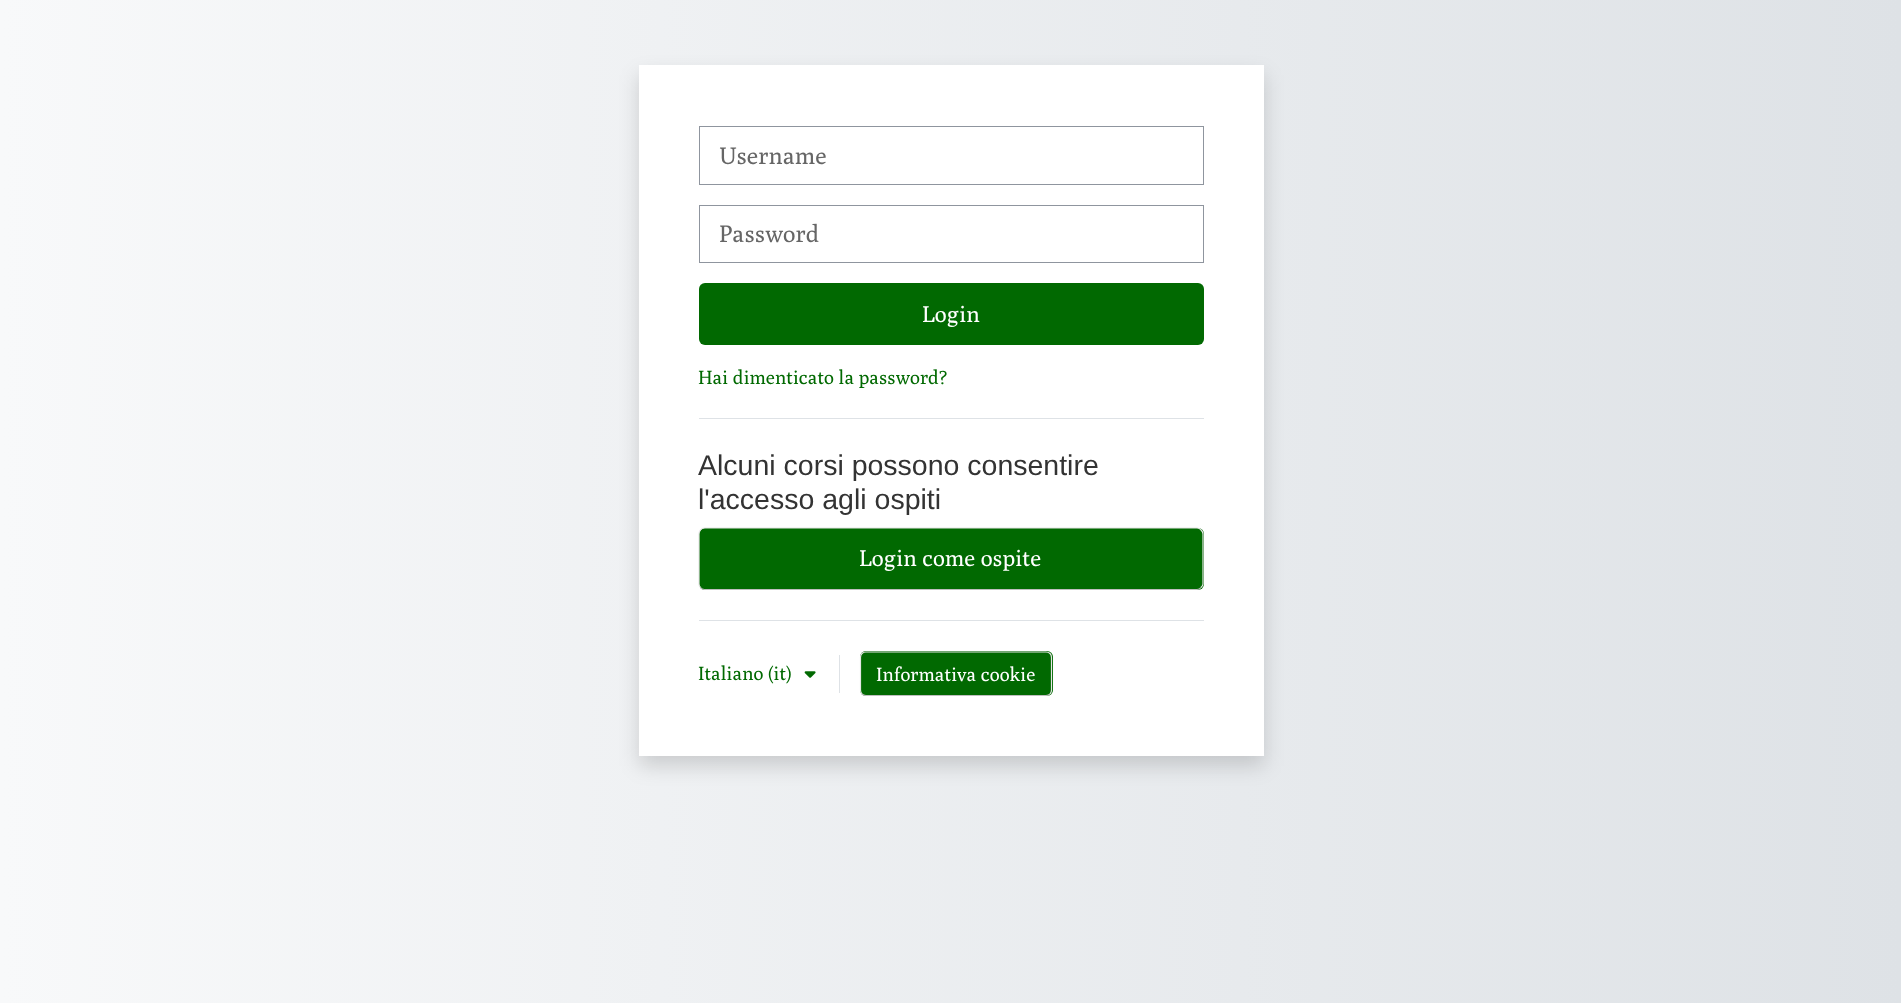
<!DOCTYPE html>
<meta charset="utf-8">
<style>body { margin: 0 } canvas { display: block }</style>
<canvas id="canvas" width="1901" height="1003"></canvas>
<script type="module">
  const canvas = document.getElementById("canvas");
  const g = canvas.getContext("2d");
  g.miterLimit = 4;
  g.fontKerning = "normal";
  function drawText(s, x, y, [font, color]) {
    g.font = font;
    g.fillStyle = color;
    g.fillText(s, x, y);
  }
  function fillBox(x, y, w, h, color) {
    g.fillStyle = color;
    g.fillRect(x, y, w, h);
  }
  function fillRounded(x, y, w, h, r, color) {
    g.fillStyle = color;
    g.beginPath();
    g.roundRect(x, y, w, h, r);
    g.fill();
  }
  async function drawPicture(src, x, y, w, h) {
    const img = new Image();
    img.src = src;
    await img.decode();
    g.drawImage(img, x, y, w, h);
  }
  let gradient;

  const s1 = ["23.75px Poly", "#666666"];
  const s2 = ["22.75px Poly", "#FFFFFF"];
  const s3 = ["19px Poly", "#016901"];
  const s4 = ["28.5px Liberation Sans", "#333333"];
  const s5 = ["19px Poly", "#FFFFFF"];

  fillBox(0, 0, 1901, 1003, "#FFFFFF");
  gradient = g.createLinearGradient(0, 502, 1901, 502);
  gradient.addColorStop(0, "#F8F9FA");
  gradient.addColorStop(1, "#DEE2E6");
  g.fillStyle = gradient;
  g.fillRect(0, 0, 1901, 1003);
  g.fillStyle = "rgba(0, 0, 0, 0.15)";
  g.filter = "blur(10px)";
  g.beginPath();
  g.rect(639, 75, 625, 691);
  g.fill();
  g.filter = "none";
  fillBox(639, 65, 625, 691, "#FFFFFF");
  g.strokeStyle = "#8F959E";
  g.strokeRect(699.5, 126.5, 504, 58);
  drawText("Username", 719, 164, s1);
  g.strokeRect(699.5, 205.5, 504, 57);
  drawText("Password", 719, 242, s1);
  fillRounded(699, 283, 505, 62, 6, "#016901");
  drawText("Login", 922, 322, s2);
  drawText("Hai dimenticato la password?", 698, 384, s3);
  fillBox(699, 418, 505, 1, "#DEE2E6");
  drawText("Alcuni corsi possono consentire", 698, 475, s4);
  drawText("l'accesso agli ospiti", 698, 509, s4);
  fillRounded(699, 528, 505, 62, 6, "#016901");
  g.beginPath();
  g.moveTo(1201, 587.5);
  g.bezierCurveTo(1200, 589, 1198.5, 589.5, 1197, 589.5);
  g.lineTo(704.5, 589.5);
  g.bezierCurveTo(703, 589.5, 701.5, 589, 700.5, 587.5);
  g.strokeStyle = "#BFBFBF";
  g.lineWidth = 1.2;
  g.stroke();
  g.beginPath();
  g.moveTo(700.5, 587.5);
  g.bezierCurveTo(699.5, 586.5, 699, 585, 699, 584);
  g.lineTo(699, 534);
  g.bezierCurveTo(699, 532.5, 699.5, 531, 700.5, 530);
  g.bezierCurveTo(701.5, 528.5, 703, 528, 704.5, 528);
  g.lineTo(1197, 528);
  g.bezierCurveTo(1198.5, 528, 1200, 528.5, 1201, 530);
  g.bezierCurveTo(1202, 531, 1203, 532.5, 1203, 534);
  g.lineTo(1203, 584);
  g.bezierCurveTo(1203, 585, 1202, 586.5, 1201, 587.5);
  g.strokeStyle = "#E6E6E6";
  g.stroke();
  drawText("Login come ospite", 859, 566, s2);
  fillBox(699, 620, 505, 1, "#DEE2E6");
  drawText("Italiano (it)", 698, 680, s3);
  await drawPicture("pic1.png", 804, 671, 12, 7);
  fillBox(839, 655, 1, 38, "#DEE2E6");
  fillRounded(860, 651, 193, 45, 6, "#016901");
  g.beginPath();
  g.moveTo(1050, 694);
  g.bezierCurveTo(1049, 695, 1047.5, 695.5, 1046, 695.5);
  g.lineTo(866, 695.5);
  g.bezierCurveTo(864.5, 695.5, 863, 695, 862, 694);
  g.strokeStyle = "#BFBFBF";
  g.stroke();
  g.beginPath();
  g.moveTo(862, 694);
  g.bezierCurveTo(861, 693, 860.5, 691.5, 860.5, 690);
  g.lineTo(860.5, 657.5);
  g.bezierCurveTo(860.5, 656, 861, 654.5, 862, 653.5);
  g.bezierCurveTo(863, 652.5, 864.5, 652, 866, 652);
  g.lineTo(1046, 652);
  g.bezierCurveTo(1047.5, 652, 1049, 652.5, 1050, 653.5);
  g.bezierCurveTo(1051, 654.5, 1051.5, 656, 1051.5, 657.5);
  g.lineTo(1051.5, 690);
  g.bezierCurveTo(1051.5, 691.5, 1051, 693, 1050, 694);
  g.strokeStyle = "#E6E6E6";
  g.stroke();
  drawText("Informativa cookie", 876, 681, s5);
</script>
